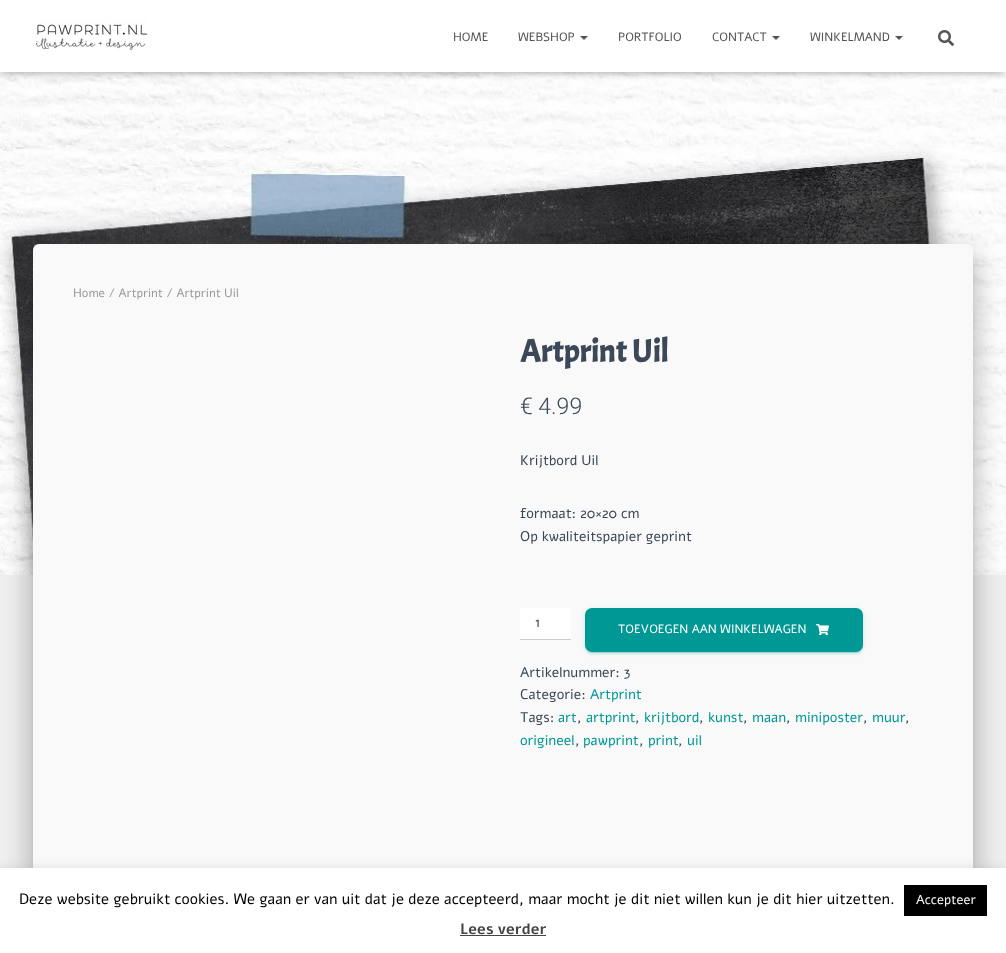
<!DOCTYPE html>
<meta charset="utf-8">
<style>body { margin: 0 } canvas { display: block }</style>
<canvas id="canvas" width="1006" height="953"></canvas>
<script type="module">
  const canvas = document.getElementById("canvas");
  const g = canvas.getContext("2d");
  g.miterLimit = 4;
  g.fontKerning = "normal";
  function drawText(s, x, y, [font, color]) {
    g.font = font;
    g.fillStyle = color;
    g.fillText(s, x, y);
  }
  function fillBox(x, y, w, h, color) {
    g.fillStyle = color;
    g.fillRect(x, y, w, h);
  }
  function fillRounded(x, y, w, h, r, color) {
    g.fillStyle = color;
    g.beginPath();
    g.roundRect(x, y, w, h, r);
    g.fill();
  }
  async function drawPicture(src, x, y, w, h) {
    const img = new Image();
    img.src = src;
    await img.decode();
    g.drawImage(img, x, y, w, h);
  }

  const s1 = ["12px Alef", "#555555"];
  const s2 = ["12px Alef", "#999999"];
  const s3 = ["bold 32px Acme", "#3C4858"];
  const s4 = ["300 23px Roboto", "#3C4858"];
  const s5 = ["14px Alef", "#3C4858"];
  const s6 = ["12px Alef", "#FFFFFF"];
  const s7 = ["14px Alef", "#009895"];
  const s8 = ["15px Alef", "#000000"];
  const s9 = ["13px Alef", "#FFFFFF"];
  const s10 = ["bold 15px Alef", "#444444"];

  fillBox(0, 0, 1006, 953, "#FFFFFF");
  await drawPicture("pic3.png", 0, 72, 1006, 503);
  g.fillStyle = "rgba(0, 0, 0, 0.1)";
  g.filter = "blur(2.5px)";
  g.beginPath();
  g.rect(2, 6, 1002, 68);
  g.fill();
  g.filter = "none";
  g.fillStyle = "rgba(0, 0, 0, 0.12)";
  g.filter = "blur(5px)";
  g.beginPath();
  g.rect(0, 1, 1006, 72);
  g.fill();
  g.filter = "none";
  g.fillStyle = "rgba(0, 0, 0, 0.42)";
  g.filter = "blur(5px)";
  g.beginPath();
  g.rect(6, 7, 994, 60);
  g.fill();
  g.filter = "none";
  fillBox(0, 0, 1006, 72, "#FFFFFF");
  await drawPicture("pic1.png", 36, 20, 112, 31);
  drawText("HOME", 453, 41, s1);
  drawText("WEBSHOP", 518, 41, s1);
  g.beginPath();
  g.moveTo(580, 36);
  g.lineTo(588, 36);
  g.lineTo(584, 40);
  g.closePath();
  g.fill();
  drawText("PORTFOLIO", 618, 41, s1);
  drawText("CONTACT", 712, 41, s1);
  g.beginPath();
  g.moveTo(772, 36);
  g.lineTo(780, 36);
  g.lineTo(776, 40);
  g.closePath();
  g.fill();
  drawText("WINKELMAND", 810, 41, s1);
  g.beginPath();
  g.moveTo(895, 36);
  g.lineTo(903, 36);
  g.lineTo(899, 40);
  g.closePath();
  g.fill();
  await drawPicture("pic2.png", 938, 30, 16, 16);
  fillBox(0, 575, 1006, 293, "#F0F0F0");
  g.fillStyle = "rgba(0, 0, 0, 0.2)";
  g.filter = "blur(5px)";
  g.beginPath();
  g.roundRect(38, 257, 930, 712, 1);
  g.fill();
  g.filter = "none";
  g.fillStyle = "rgba(0, 0, 0, 0.12)";
  g.filter = "blur(15px)";
  g.beginPath();
  g.roundRect(28, 245, 950, 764, 11);
  g.fill();
  g.filter = "none";
  g.fillStyle = "rgba(0, 0, 0, 0.14)";
  g.filter = "blur(12px)";
  g.beginPath();
  g.roundRect(31, 258, 944, 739, 8);
  g.fill();
  g.filter = "none";
  fillRounded(33, 244, 940, 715, 6, "#F9F9F9");
  drawText("Home / Artprint / Artprint Uil", 73, 297, s2);
  drawText("Artprint Uil", 520, 362, s3);
  drawText("€ 4.99", 520, 414, s4);
  drawText("Krijtbord Uil", 520, 465, s5);
  drawText("formaat: 20×20 cm", 520, 518, s5);
  drawText("Op kwaliteitspapier geprint", 520, 541, s5);
  fillBox(520, 608, 51, 31, "#FFFFFF");
  fillBox(520, 639, 51, 1, "#CCCCCC");
  drawText("1", 535, 627, s5);
  g.fillStyle = "rgba(0, 152, 149, 0.12)";
  g.filter = "blur(2.5px)";
  g.beginPath();
  g.roundRect(585, 609, 278, 44, 7);
  g.fill();
  g.filter = "none";
  g.fillStyle = "rgba(0, 152, 149, 0.2)";
  g.filter = "blur(0.5px)";
  g.beginPath();
  g.roundRect(587, 613, 274, 40, 5);
  g.fill();
  g.filter = "none";
  g.fillStyle = "rgba(0, 152, 149, 0.14)";
  g.filter = "blur(1px)";
  g.beginPath();
  g.roundRect(585, 610, 278, 44, 7);
  g.fill();
  g.filter = "none";
  fillRounded(585, 608, 278, 44, 7, "#009895");
  drawText("TOEVOEGEN AAN WINKELWAGEN", 618, 633, s6);
  await drawPicture("pic4.png", 816, 624, 13, 11);
  drawText("Artikelnummer: 3", 520, 677, s5);
  drawText("Categorie:", 520, 699, s5);
  drawText("Artprint", 590, 699, s7);
  drawText("Tags:", 520, 722, s5);
  drawText("art", 558, 722, s7);
  drawText(",", 577, 722, s5);
  drawText("artprint", 586, 722, s7);
  drawText(",", 635, 722, s5);
  drawText("krijtbord", 644, 722, s7);
  drawText(",", 699, 722, s5);
  drawText("kunst", 708, 722, s7);
  drawText(",", 743, 722, s5);
  drawText("maan", 752, 722, s7);
  drawText(",", 786, 722, s5);
  drawText("miniposter", 795, 722, s7);
  drawText(",", 863, 722, s5);
  drawText("muur", 872, 722, s7);
  drawText(",", 905, 722, s5);
  drawText("origineel", 520, 745, s7);
  drawText(",", 575, 745, s5);
  drawText("pawprint", 583, 745, s7);
  drawText(",", 639, 745, s5);
  drawText("print", 648, 745, s7);
  drawText(",", 678, 745, s5);
  drawText("uil", 687, 745, s7);
  g.fillStyle = "rgba(172, 171, 171, 0.3)";
  g.filter = "blur(5px)";
  g.beginPath();
  g.rect(0, 867, 1006, 85);
  g.fill();
  g.filter = "none";
  fillBox(0, 868, 1006, 85, "#FFFFFF");
  drawText("Deze website gebruikt cookies. We gaan er van uit dat je deze accepteerd, maar mocht je dit niet willen kun je dit hier uitzetten.", 19, 904, s8);
  fillBox(904, 885, 83, 31, "#000000");
  drawText("Accepteer", 916, 904, s9);
  drawText("Lees verder", 460, 934, s10);
  fillBox(460, 935, 86, 1, "#444444");
</script>
